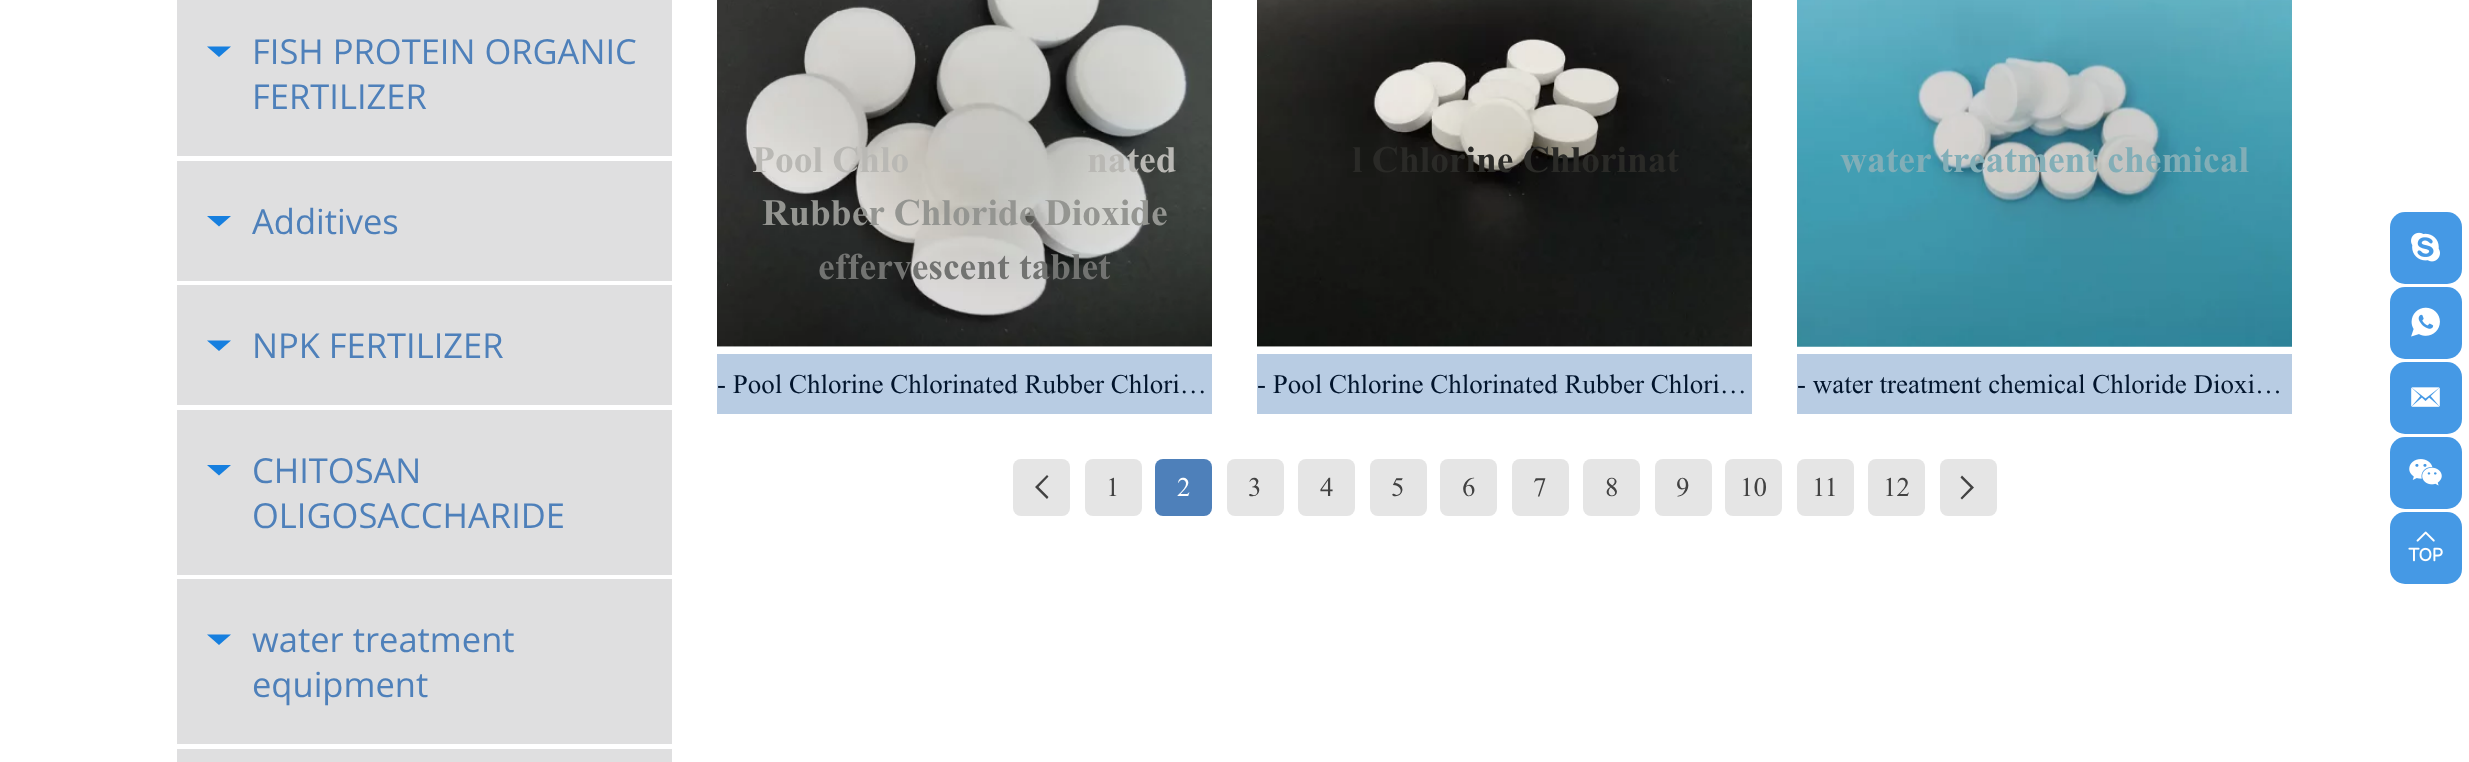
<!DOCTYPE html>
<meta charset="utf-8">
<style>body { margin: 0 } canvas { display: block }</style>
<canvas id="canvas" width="2469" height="762"></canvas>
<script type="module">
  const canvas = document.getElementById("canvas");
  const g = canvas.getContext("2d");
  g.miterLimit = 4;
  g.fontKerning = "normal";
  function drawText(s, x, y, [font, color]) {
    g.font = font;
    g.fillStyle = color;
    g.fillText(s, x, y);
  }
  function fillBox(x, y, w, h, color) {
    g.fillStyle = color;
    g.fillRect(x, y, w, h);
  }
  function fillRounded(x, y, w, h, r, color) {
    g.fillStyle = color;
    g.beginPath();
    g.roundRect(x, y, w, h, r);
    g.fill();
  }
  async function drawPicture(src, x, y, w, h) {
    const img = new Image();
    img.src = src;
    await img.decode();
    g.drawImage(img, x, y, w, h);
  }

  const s1 = ["34.5px Open Sans", "#4E80BA"];
  const s2 = ["bold 37.5px Times New Roman", "#B9B8B4"];
  const s3 = ["bold 37.5px Times New Roman", "#949591"];
  const s4 = ["bold 37.5px Times New Roman", "#727371"];
  const s5 = ["27px Times New Roman", "#02152D"];
  const s6 = ["bold 37.5px Times New Roman", "#2A2A27"];
  const s7 = ["bold 37.5px Times New Roman", "#82AEB7"];
  const s8 = ["27px Times New Roman", "#424242"];
  const s9 = ["27px Times New Roman", "#FFFFFF"];

  fillBox(0, 0, 2469, 762, "#FFFFFF");
  fillBox(177, 0, 495, 156, "#DFDFE0");
  g.fillStyle = "#167FDF";
  g.beginPath();
  g.moveTo(207, 46.5);
  g.lineTo(231, 46.5);
  g.lineTo(219, 57);
  g.closePath();
  g.fill();
  drawText("FISH PROTEIN ORGANIC", 252, 64, s1);
  drawText("FERTILIZER", 252, 109, s1);
  fillBox(177, 161, 495, 120, "#DFDFE0");
  g.fillStyle = "#167FDF";
  g.beginPath();
  g.moveTo(207, 216);
  g.lineTo(231, 216);
  g.lineTo(219, 226.5);
  g.closePath();
  g.fill();
  drawText("Additives", 252, 234, s1);
  fillBox(177, 285, 495, 120, "#DFDFE0");
  g.fillStyle = "#167FDF";
  g.beginPath();
  g.moveTo(207, 340.5);
  g.lineTo(231, 340.5);
  g.lineTo(219, 351);
  g.closePath();
  g.fill();
  drawText("NPK FERTILIZER", 252, 358, s1);
  fillBox(177, 410, 495, 165, "#DFDFE0");
  g.fillStyle = "#167FDF";
  g.beginPath();
  g.moveTo(207, 465);
  g.lineTo(231, 465);
  g.lineTo(219, 475.5);
  g.closePath();
  g.fill();
  drawText("CHITOSAN", 252, 483, s1);
  drawText("OLIGOSACCHARIDE", 252, 528, s1);
  fillBox(177, 579, 495, 165, "#DFDFE0");
  g.fillStyle = "#167FDF";
  g.beginPath();
  g.moveTo(207, 634.5);
  g.lineTo(231, 634.5);
  g.lineTo(219, 645);
  g.closePath();
  g.fill();
  drawText("water treatment", 252, 652, s1);
  drawText("equipment", 252, 697, s1);
  fillBox(177, 749, 495, 13, "#DFDFE0");
  await drawPicture("pic1.png", 717, 0, 495, 347);
  await drawPicture("pic2.png", 717, 346, 495, 1);
  drawText("Pool Chlo", 752, 172, s2);
  drawText("nated", 1087, 172, s2);
  drawText("Rubber Chloride Dioxide", 762, 225, s3);
  drawText("effervescent tablet", 818, 279, s4);
  fillBox(717, 354, 495, 60, "#B8CCE3");
  drawText("- Pool Chlorine Chlorinated Rubber Chlori…", 717, 393, s5);
  await drawPicture("pic3.png", 1257, 0, 495, 347);
  await drawPicture("pic4.png", 1257, 346, 495, 1);
  drawText("l Chlorine Chlorinat", 1352, 172, s6);
  fillBox(1257, 354, 495, 60, "#B8CCE3");
  drawText("- Pool Chlorine Chlorinated Rubber Chlori…", 1257, 393, s5);
  await drawPicture("pic5.png", 1797, 0, 495, 347);
  await drawPicture("pic6.png", 1797, 61, 495, 286);
  drawText("water treatment chemical", 1840, 172, s7);
  fillBox(1797, 354, 495, 60, "#B8CCE3");
  drawText("- water treatment chemical Chloride Dioxi…", 1797, 393, s5);
  fillRounded(1013, 459, 57, 57, 8, "#E5E5E5");
  g.fillStyle = "#424242";
  g.beginPath();
  g.moveTo(1048.5, 497);
  g.lineTo(1047, 499);
  g.lineTo(1035, 487);
  g.lineTo(1047, 475);
  g.lineTo(1048.5, 476.5);
  g.lineTo(1038.5, 487);
  g.closePath();
  g.fill();
  fillRounded(1085, 459, 57, 57, 8, "#E5E5E5");
  drawText("1", 1106, 496, s8);
  fillRounded(1155, 459, 57, 57, 8, "#4E80BA");
  drawText("2", 1177, 496, s9);
  fillRounded(1227, 459, 57, 57, 8, "#E5E5E5");
  drawText("3", 1248, 496, s8);
  fillRounded(1298, 459, 57, 57, 8, "#E5E5E5");
  drawText("4", 1320, 496, s8);
  fillRounded(1370, 459, 57, 57, 8, "#E5E5E5");
  drawText("5", 1391, 496, s8);
  fillRounded(1440, 459, 57, 57, 8, "#E5E5E5");
  drawText("6", 1462, 496, s8);
  fillRounded(1512, 459, 57, 57, 8, "#E5E5E5");
  drawText("7", 1533, 496, s8);
  fillRounded(1583, 459, 57, 57, 8, "#E5E5E5");
  drawText("8", 1605, 496, s8);
  fillRounded(1655, 459, 57, 57, 8, "#E5E5E5");
  drawText("9", 1676, 496, s8);
  fillRounded(1725, 459, 57, 57, 8, "#E5E5E5");
  drawText("10", 1740, 496, s8);
  fillRounded(1797, 459, 57, 57, 8, "#E5E5E5");
  drawText("11", 1812, 496, s8);
  fillRounded(1868, 459, 57, 57, 8, "#E5E5E5");
  drawText("12", 1883, 496, s8);
  fillRounded(1940, 459, 57, 57, 8, "#E5E5E5");
  g.fillStyle = "#424242";
  g.beginPath();
  g.moveTo(1960.5, 477.5);
  g.lineTo(1962, 475.5);
  g.lineTo(1974, 487.5);
  g.lineTo(1962, 499.5);
  g.lineTo(1960.5, 498);
  g.lineTo(1970.5, 487.5);
  g.closePath();
  g.fill();
  fillRounded(2390, 212, 72, 72, 15, "#4599E5");
  await drawPicture("pic7.png", 2411, 232, 29, 30);
  fillRounded(2390, 287, 72, 72, 15, "#4599E5");
  await drawPicture("pic8.png", 2411, 307, 29, 30);
  fillRounded(2390, 362, 72, 72, 15, "#4599E5");
  await drawPicture("pic9.png", 2411, 387, 29, 20);
  fillRounded(2390, 437, 72, 72, 15, "#4599E5");
  await drawPicture("pic10.png", 2409, 459, 33, 27);
  fillRounded(2390, 512, 72, 72, 15, "#4599E5");
  await drawPicture("pic11.png", 2408, 531, 35, 31);
</script>
